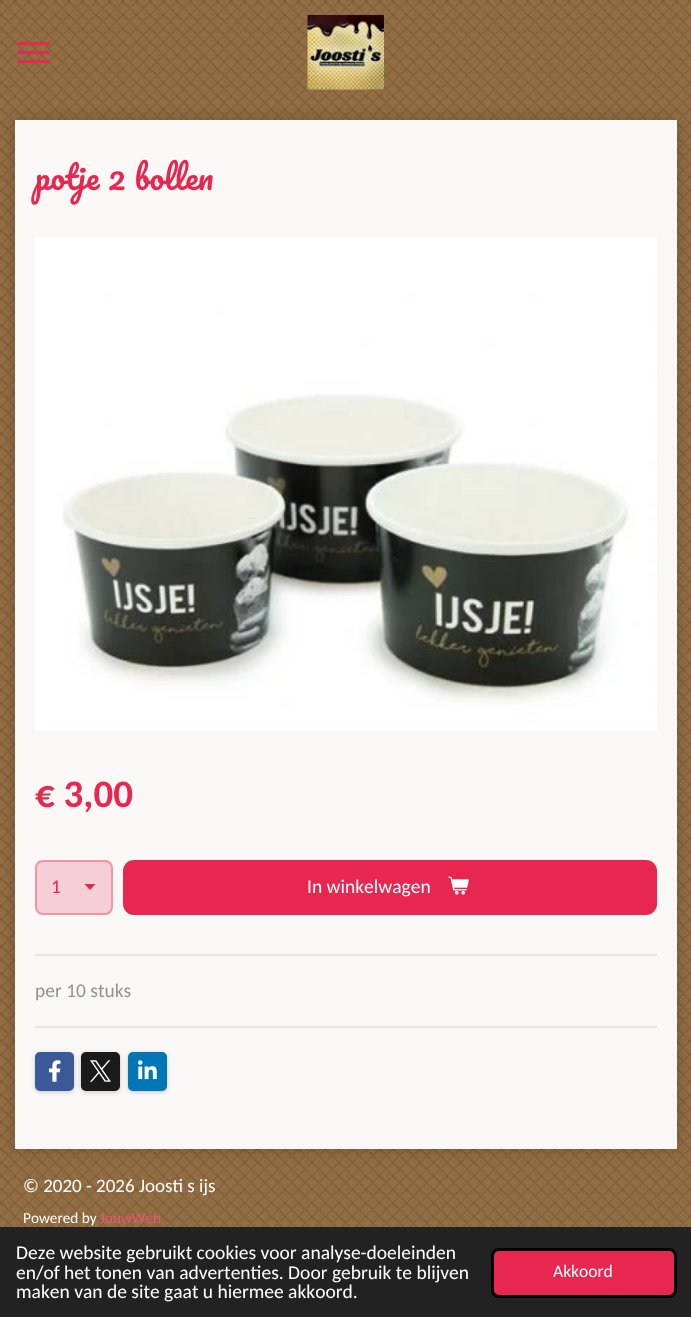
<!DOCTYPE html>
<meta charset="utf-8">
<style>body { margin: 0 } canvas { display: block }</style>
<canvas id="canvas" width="691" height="1317"></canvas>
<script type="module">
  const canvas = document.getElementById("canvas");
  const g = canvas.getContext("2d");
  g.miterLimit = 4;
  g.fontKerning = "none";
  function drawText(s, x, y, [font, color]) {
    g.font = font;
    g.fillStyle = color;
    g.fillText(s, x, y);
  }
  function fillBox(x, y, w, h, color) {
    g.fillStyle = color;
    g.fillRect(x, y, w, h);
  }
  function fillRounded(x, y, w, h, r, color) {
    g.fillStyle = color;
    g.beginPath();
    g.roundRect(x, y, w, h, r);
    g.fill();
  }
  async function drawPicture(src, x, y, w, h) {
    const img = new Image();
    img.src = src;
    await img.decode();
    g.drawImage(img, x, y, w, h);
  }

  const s1 = ["32.25px Pacifico", "#E82750"];
  const s2 = ["bold 39px Carlito", "#E82750"];
  const s3 = ["19.5px Carlito", "#E82750"];
  const s4 = ["19.5px Carlito", "#FFFFFF"];
  const s5 = ["19.5px Carlito", "#929292"];
  const s6 = ["19px Carlito", "#FFFFFF"];
  const s7 = ["15.25px Carlito", "#FFFFFF"];
  const s8 = ["15.25px Carlito", "#ED5575"];
  const s9 = ["17.5px Carlito", "#FFFFFF"];

  fillBox(0, 0, 691, 1317, "#967045");
  await drawPicture("pic1.png", 0, 0, 691, 1227);
  fillRounded(17, 51, 33, 3, 1.5, "#E82750");
  fillRounded(17, 42, 33, 3, 1.5, "#E82750");
  fillRounded(17, 60, 33, 3, 1.5, "#E82750");
  await drawPicture("pic2.png", 307, 15, 77, 75);
  g.fillStyle = "rgba(0, 0, 0, 0.2)";
  g.filter = "blur(7.5px)";
  g.beginPath();
  g.rect(15, 120, 662, 1029);
  g.fill();
  g.filter = "none";
  fillBox(15, 120, 662, 1029, "#F9F8F6");
  drawText("potje 2 bollen", 35, 190, s1);
  await drawPicture("pic3.png", 34, 237, 623, 494);
  drawText("€ 3,00", 35, 807, s2);
  fillRounded(35, 860, 78, 55, 8, "#F6CED5");
  g.save();
  g.beginPath();
  g.rect(84, 884, 14, 6);
  g.clip();
  g.fillStyle = "#E82750";
  g.beginPath();
  g.moveTo(90, 890);
  g.lineTo(84, 883.5);
  g.lineTo(96, 883.5);
  g.closePath();
  g.fill();
  g.restore();
  g.beginPath();
  g.roundRect(36, 861, 76, 53, 7);
  g.strokeStyle = "rgba(236, 91, 122, 0.5)";
  g.lineWidth = 2;
  g.stroke();
  drawText("1", 51, 893, s3);
  fillRounded(123, 860, 534, 55, 11, "#E82750");
  drawText("In winkelwagen", 307, 893, s4);
  await drawPicture("pic4.png", 448, 876, 21, 19);
  fillBox(35, 954, 622, 2, "#E4E4E2");
  drawText("per 10 stuks", 35, 997, s5);
  fillBox(35, 1026, 622, 2, "#E4E4E2");
  g.fillStyle = "rgba(0, 0, 0, 0.2)";
  g.filter = "blur(2px)";
  g.beginPath();
  g.roundRect(35, 1053, 39, 39, 5);
  g.fill();
  g.filter = "none";
  fillRounded(35, 1052, 39, 39, 5, "#3B5998");
  await drawPicture("pic5.png", 48, 1060, 13, 22);
  g.fillStyle = "rgba(0, 0, 0, 0.2)";
  g.filter = "blur(2px)";
  g.beginPath();
  g.roundRect(81, 1053, 39, 39, 5);
  g.fill();
  g.filter = "none";
  fillRounded(81, 1052, 39, 39, 5, "#1A1A1A");
  await drawPicture("pic6.png", 90, 1060, 21, 22);
  g.fillStyle = "rgba(0, 0, 0, 0.2)";
  g.filter = "blur(2px)";
  g.beginPath();
  g.roundRect(128, 1053, 39, 39, 5);
  g.fill();
  g.filter = "none";
  fillRounded(128, 1052, 39, 39, 5, "#0077B5");
  await drawPicture("pic7.png", 138, 1060, 19, 20);
  drawText("© 2020 - 2026 Joosti s ijs", 23, 1192, s6);
  drawText("Powered by", 23, 1223, s7);
  drawText("JouwWeb", 100, 1223, s8);
  fillBox(0, 1227, 691, 90, "#222222");
  drawText("Deze website gebruikt cookies voor analyse-doeleinden", 16, 1259, s4);
  drawText("en/of het tonen van advertenties. Door gebruik te blijven", 16, 1279, s4);
  drawText("maken van de site gaat u hiermee akkoord.", 16, 1298, s4);
  g.fillStyle = "#E82750";
  g.beginPath();
  g.roundRect(492.5, 1249.5, 183, 47, 6.5);
  g.fill();
  g.strokeStyle = "#000000";
  g.lineWidth = 3;
  g.stroke();
  drawText("Akkoord", 553, 1277, s9);
</script>
